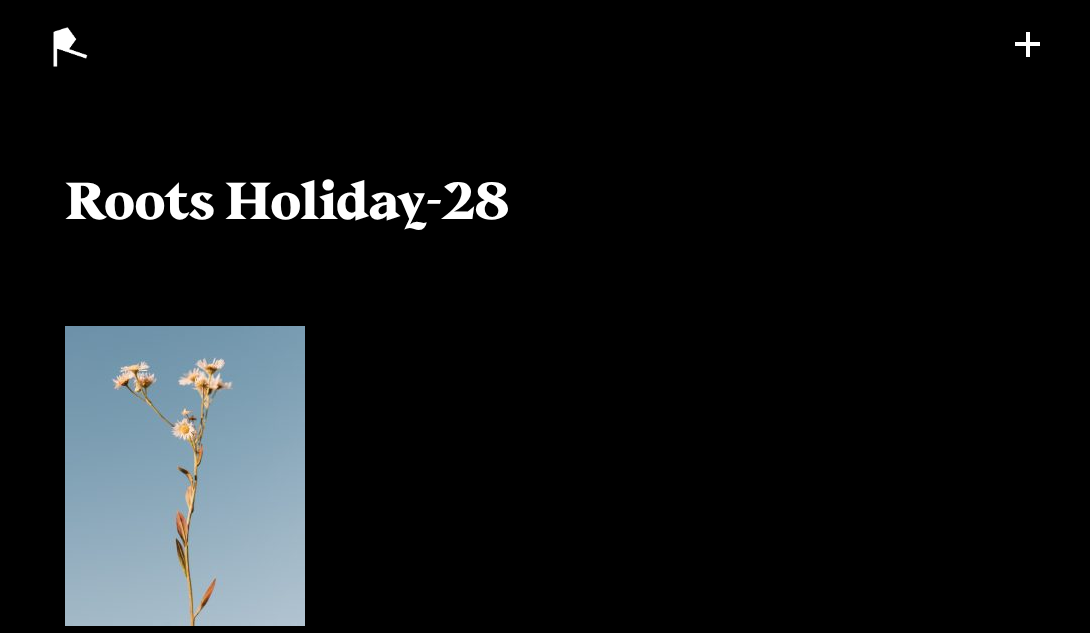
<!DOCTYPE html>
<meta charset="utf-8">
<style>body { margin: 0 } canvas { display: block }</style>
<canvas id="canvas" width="1090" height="633"></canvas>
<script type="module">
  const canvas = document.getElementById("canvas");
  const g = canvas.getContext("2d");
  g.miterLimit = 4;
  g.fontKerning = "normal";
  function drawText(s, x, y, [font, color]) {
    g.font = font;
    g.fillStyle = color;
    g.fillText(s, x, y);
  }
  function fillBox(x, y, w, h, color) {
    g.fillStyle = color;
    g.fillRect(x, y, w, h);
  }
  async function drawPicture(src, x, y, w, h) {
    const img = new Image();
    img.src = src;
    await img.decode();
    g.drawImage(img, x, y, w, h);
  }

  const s1 = ["bold 54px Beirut", "#FFFFFF"];

  fillBox(0, 0, 1090, 633, "#000000");
  await drawPicture("pic1.png", 53, 27, 35, 40);
  fillBox(1015, 42, 25, 4, "#FFFFFF");
  fillBox(1026, 32, 4, 25, "#FFFFFF");
  drawText("Roots Holiday-28", 65, 219, s1);
  await drawPicture("pic2.png", 65, 326, 240, 300);
</script>
